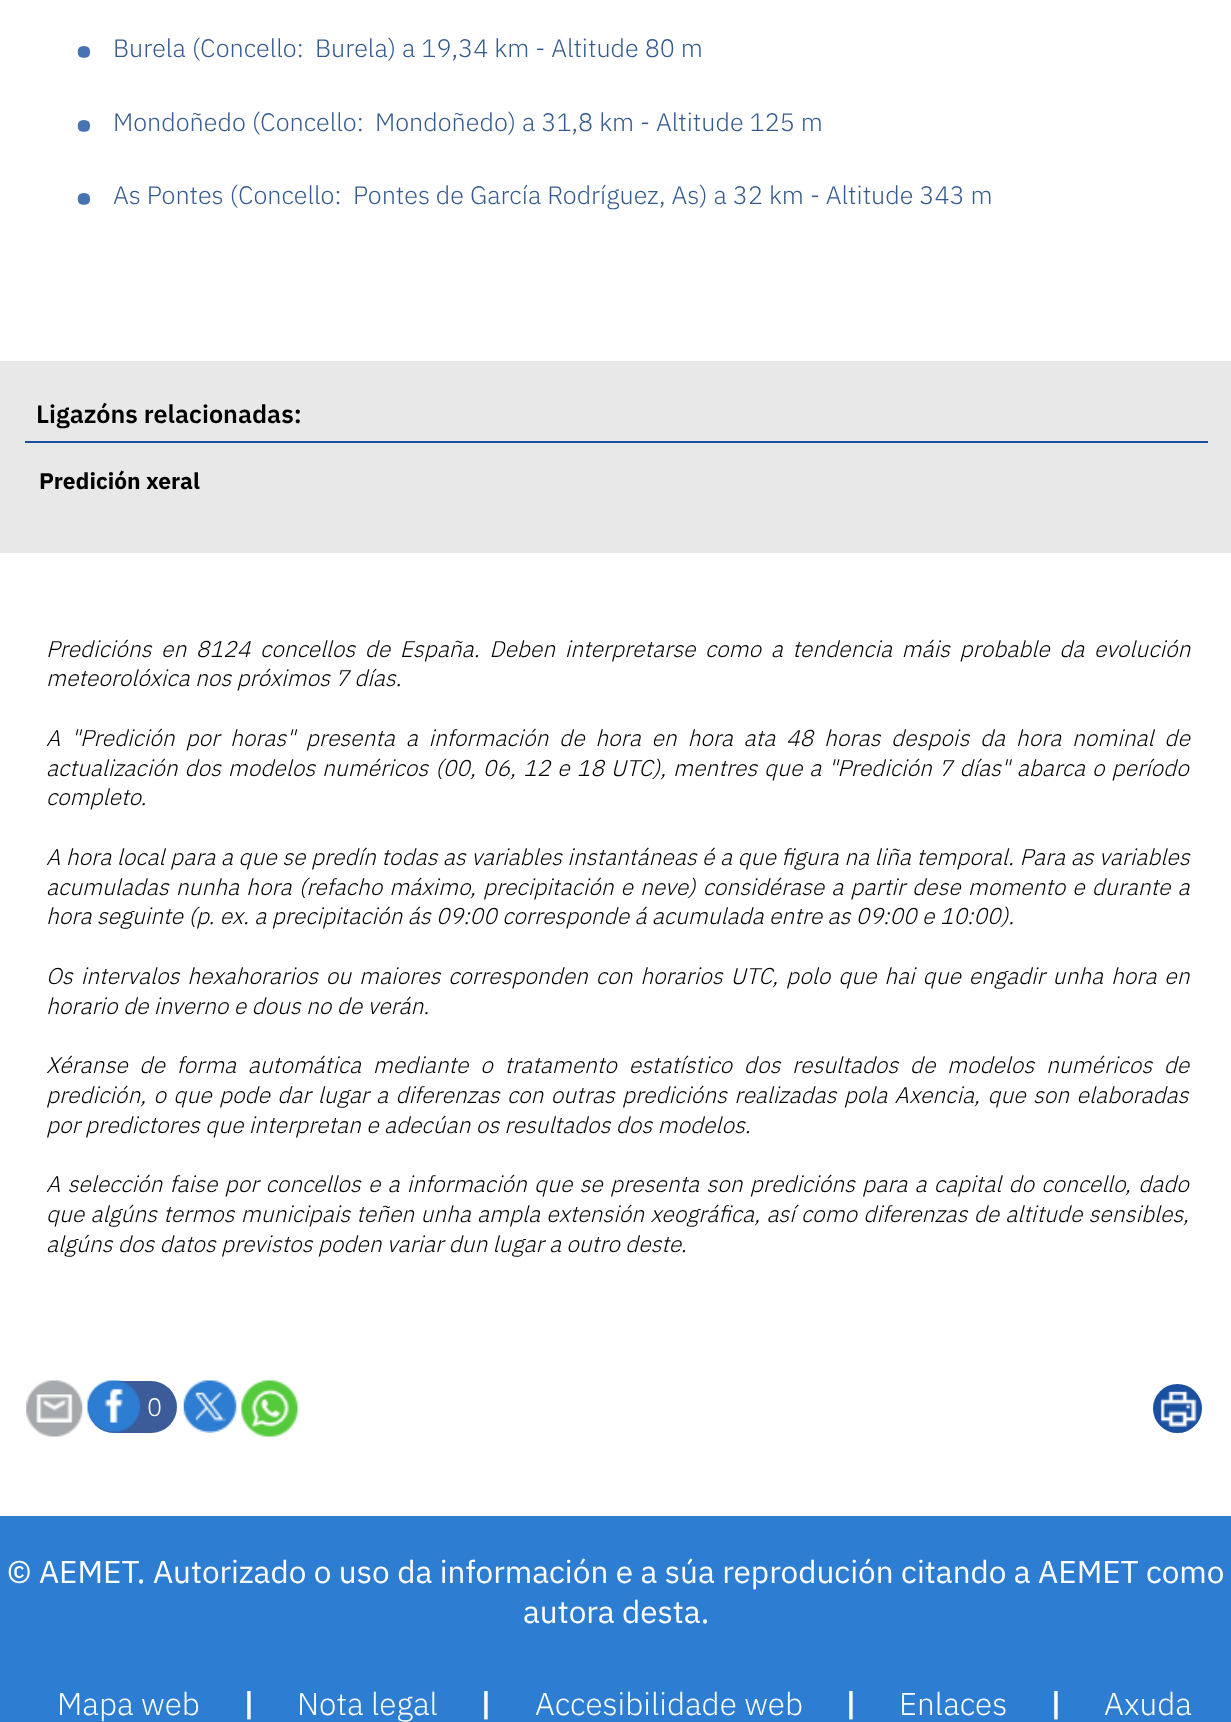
<!DOCTYPE html>
<meta charset="utf-8">
<style>body { margin: 0 } canvas { display: block }</style>
<canvas id="canvas" width="1231" height="1722"></canvas>
<script type="module">
  const canvas = document.getElementById("canvas");
  const g = canvas.getContext("2d");
  g.miterLimit = 4;
  g.fontKerning = "normal";
  function drawText(s, x, y, [font, color]) {
    g.font = font;
    g.fillStyle = color;
    g.fillText(s, x, y);
  }
  function fillBox(x, y, w, h, color) {
    g.fillStyle = color;
    g.fillRect(x, y, w, h);
  }
  function fillRounded(x, y, w, h, r, color) {
    g.fillStyle = color;
    g.beginPath();
    g.roundRect(x, y, w, h, r);
    g.fill();
  }
  async function drawPicture(src, x, y, w, h) {
    const img = new Image();
    img.src = src;
    await img.decode();
    g.drawImage(img, x, y, w, h);
  }

  const s1 = ["50px IBM Plex Sans", "#4773B3"];
  const s2 = ["300 25.2px IBM Plex Sans", "#345A8E"];
  const s3 = ["600 25.2px IBM Plex Sans", "#000000"];
  const s4 = ["bold 22.75px IBM Plex Sans", "#000000"];
  const s5 = ["italic 300 22.75px IBM Plex Sans", "#000000"];
  const s6 = ["300 25.2px IBM Plex Sans", "#FFFFFF"];
  const s7 = ["31.5px IBM Plex Sans", "#FFFFFF"];
  const s8 = ["300 31.5px IBM Plex Sans", "#FFFFFF"];
  const s9 = ["600 31.5px IBM Plex Sans", "#FFFFFF"];

  fillBox(0, 0, 1231, 1722, "#FFFFFF");
  drawText("•", 74, 67, s1);
  drawText("Burela (Concello:", 113, 57, s2);
  drawText("Burela) a 19,34 km - Altitude 80 m", 315, 57, s2);
  drawText("•", 74, 141, s1);
  drawText("Mondoñedo (Concello:", 113, 131, s2);
  drawText("Mondoñedo) a 31,8 km - Altitude 125 m", 375, 131, s2);
  drawText("•", 74, 214, s1);
  drawText("As Pontes (Concello:", 113, 204, s2);
  drawText("Pontes de García Rodríguez, As) a 32 km - Altitude 343 m", 353, 204, s2);
  fillBox(0, 361, 1231, 192, "#E8E8E8");
  fillBox(25, 441, 1183, 2, "#1950A0");
  drawText("Ligazóns relacionadas:", 36, 423, s3);
  drawText("Predición xeral", 39, 489, s4);
  g.wordSpacing = "4.25px";
  drawText("Predicións en 8124 concellos de España. Deben interpretarse como a tendencia máis probable da evolución", 46, 657, s5);
  g.wordSpacing = "0px";
  drawText("meteorolóxica nos próximos 7 días.", 46, 686, s5);
  g.wordSpacing = "5.4px";
  drawText("A \"Predición por horas\" presenta a información de hora en hora ata 48 horas despois da hora nominal de", 46, 746, s5);
  g.wordSpacing = "1.6px";
  drawText("actualización dos modelos numéricos (00, 06, 12 e 18 UTC), mentres que a \"Predición 7 días\" abarca o período", 46, 776, s5);
  g.wordSpacing = "0px";
  drawText("completo.", 46, 805, s5);
  g.wordSpacing = "0.2px";
  drawText("A hora local para a que se predín todas as variables instantáneas é a que figura na liña temporal. Para as variables", 46, 865, s5);
  g.wordSpacing = "1.7px";
  drawText("acumuladas nunha hora (refacho máximo, precipitación e neve) considérase a partir dese momento e durante a", 46, 895, s5);
  g.wordSpacing = "0px";
  drawText("hora seguinte (p. ex. a precipitación ás 09:00 corresponde á acumulada entre as 09:00 e 10:00).", 46, 924, s5);
  g.wordSpacing = "2.6px";
  drawText("Os intervalos hexahorarios ou maiores corresponden con horarios UTC, polo que hai que engadir unha hora en", 46, 984, s5);
  g.wordSpacing = "0px";
  drawText("horario de inverno e dous no de verán.", 46, 1014, s5);
  g.wordSpacing = "6.4px";
  drawText("Xéranse de forma automática mediante o tratamento estatístico dos resultados de modelos numéricos de", 46, 1073, s5);
  g.wordSpacing = "2px";
  drawText("predición, o que pode dar lugar a diferenzas con outras predicións realizadas pola Axencia, que son elaboradas", 46, 1103, s5);
  g.wordSpacing = "0px";
  drawText("por predictores que interpretan e adecúan os resultados dos modelos.", 46, 1133, s5);
  g.wordSpacing = "1.9px";
  drawText("A selección faise por concellos e a información que se presenta son predicións para a capital do concello, dado", 46, 1192, s5);
  g.wordSpacing = "0.9px";
  drawText("que algúns termos municipais teñen unha ampla extensión xeográfica, así como diferenzas de altitude sensibles,", 46, 1222, s5);
  g.wordSpacing = "0px";
  drawText("algúns dos datos previstos poden variar dun lugar a outro deste.", 46, 1252, s5);
  await drawPicture("pic1.png", 26, 1380, 57, 57);
  fillRounded(88, 1381, 89, 52, 26, "#3C5B99");
  await drawPicture("pic2.png", 87, 1380, 53, 53);
  g.letterSpacing = "-2px";
  drawText("0", 147, 1416, s6);
  await drawPicture("pic3.png", 183, 1380, 54, 53);
  await drawPicture("pic4.png", 241, 1380, 57, 57);
  g.fillStyle = "#1950A0";
  g.beginPath();
  g.arc(1177.5, 1408.5, 24.5, 0, Math.PI * 2);
  g.fill();
  await drawPicture("pic5.png", 1160, 1391, 37, 36);
  fillBox(0, 1516, 1231, 206, "#2D7DD2");
  g.letterSpacing = "0px";
  drawText("© AEMET. Autorizado o uso da información e a súa reprodución citando a AEMET como", 7, 1583, s7);
  drawText("autora desta.", 523, 1623, s7);
  drawText("Mapa web", 57, 1715, s8);
  drawText("|", 243, 1715, s9);
  drawText("Nota legal", 297, 1715, s8);
  drawText("|", 480, 1715, s9);
  drawText("Accesibilidade web", 535, 1715, s8);
  drawText("|", 845, 1715, s9);
  drawText("Enlaces", 899, 1715, s8);
  drawText("|", 1050, 1715, s9);
  drawText("Axuda", 1104, 1715, s8);
</script>
